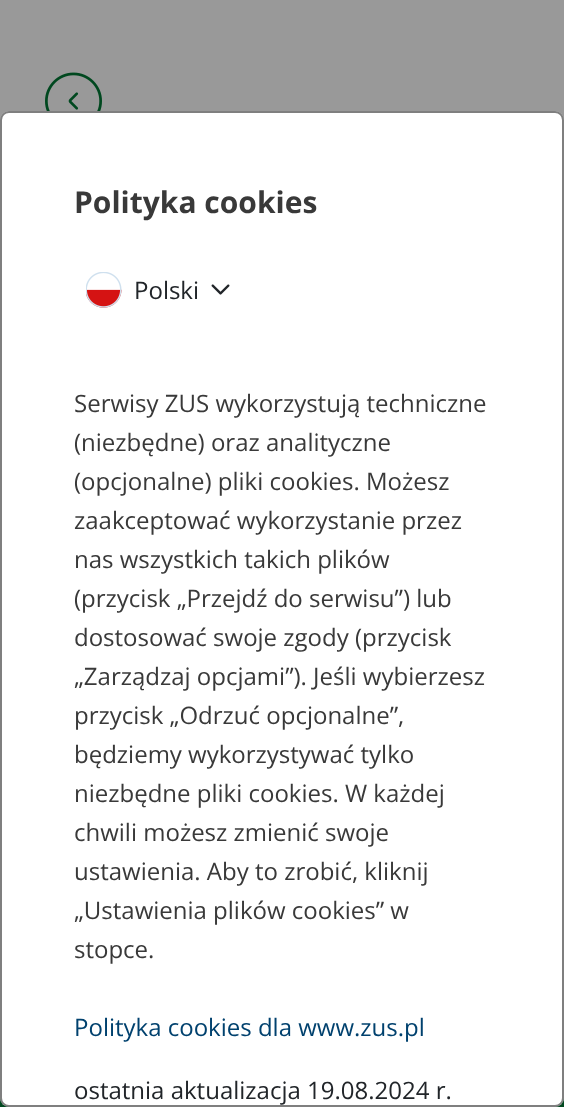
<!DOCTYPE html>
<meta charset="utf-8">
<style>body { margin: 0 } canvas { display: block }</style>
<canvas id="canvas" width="564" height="1107"></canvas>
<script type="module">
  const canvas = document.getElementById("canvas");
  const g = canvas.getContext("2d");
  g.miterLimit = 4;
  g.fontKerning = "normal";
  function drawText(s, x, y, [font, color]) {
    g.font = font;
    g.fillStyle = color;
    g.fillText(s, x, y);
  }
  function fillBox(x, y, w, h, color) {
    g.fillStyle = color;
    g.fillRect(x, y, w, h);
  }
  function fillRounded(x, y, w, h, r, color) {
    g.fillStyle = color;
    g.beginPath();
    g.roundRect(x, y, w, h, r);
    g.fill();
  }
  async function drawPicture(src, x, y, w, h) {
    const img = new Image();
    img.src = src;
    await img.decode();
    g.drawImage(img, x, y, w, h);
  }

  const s1 = ["bold 30px Open Sans", "#393939"];
  const s2 = ["24px Open Sans", "#212529"];
  const s3 = ["24px Open Sans", "#393939"];
  const s4 = ["24px Open Sans", "#00416E"];

  fillBox(0, 0, 564, 1107, "#999999");
  await drawPicture("pic1.png", 45, 72, 57, 39);
  fillBox(0, 1098, 564, 9, "#00481F");
  fillRounded(0, 111, 564, 996, 9, "#FFFFFF");
  g.beginPath();
  g.roundRect(1, 112, 562, 994, 8);
  g.strokeStyle = "rgba(0, 0, 0, 0.5)";
  g.lineWidth = 2;
  g.stroke();
  drawText("Polityka cookies", 74, 213, s1);
  await drawPicture("pic2.png", 86, 272, 36, 36);
  drawText("Polski", 134, 299, s2);
  await drawPicture("pic3.png", 211, 284, 19, 11);
  drawText("Serwisy ZUS wykorzystują techniczne", 74, 412, s3);
  drawText("(niezbędne) oraz analityczne", 74, 451, s3);
  drawText("(opcjonalne) pliki cookies. Możesz", 74, 490, s3);
  drawText("zaakceptować wykorzystanie przez", 74, 529, s3);
  drawText("nas wszystkich takich plików", 74, 568, s3);
  drawText("(przycisk „Przejdź do serwisu”) lub", 74, 607, s3);
  drawText("dostosować swoje zgody (przycisk", 74, 646, s3);
  drawText("„Zarządzaj opcjami”). Jeśli wybierzesz", 74, 685, s3);
  drawText("przycisk „Odrzuć opcjonalne”,", 74, 724, s3);
  drawText("będziemy wykorzystywać tylko", 74, 763, s3);
  drawText("niezbędne pliki cookies. W każdej", 74, 802, s3);
  drawText("chwili możesz zmienić swoje", 74, 841, s3);
  drawText("ustawienia. Aby to zrobić, kliknij", 74, 880, s3);
  drawText("„Ustawienia plików cookies” w", 74, 919, s3);
  drawText("stopce.", 74, 958, s3);
  drawText("Polityka cookies dla www.zus.pl", 74, 1036, s4);
  drawText("ostatnia aktualizacja 19.08.2024 r.", 74, 1099, s2);
</script>
